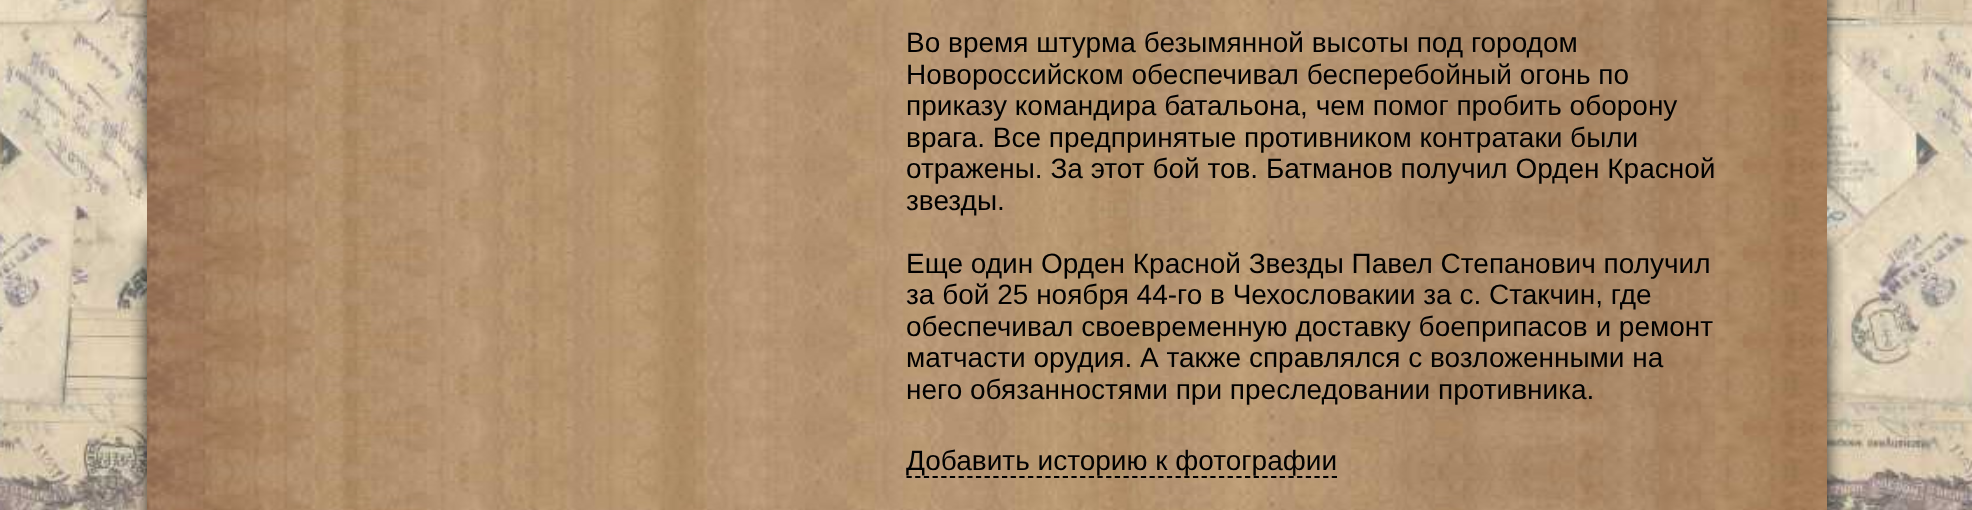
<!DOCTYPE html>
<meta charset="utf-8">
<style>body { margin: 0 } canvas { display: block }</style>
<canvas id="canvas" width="1972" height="510"></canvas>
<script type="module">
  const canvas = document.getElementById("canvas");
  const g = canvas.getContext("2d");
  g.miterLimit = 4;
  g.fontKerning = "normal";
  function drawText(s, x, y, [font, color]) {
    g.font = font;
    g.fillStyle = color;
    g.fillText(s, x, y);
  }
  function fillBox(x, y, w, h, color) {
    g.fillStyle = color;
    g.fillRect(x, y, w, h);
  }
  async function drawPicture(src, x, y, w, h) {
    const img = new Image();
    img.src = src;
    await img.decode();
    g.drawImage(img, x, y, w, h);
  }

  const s1 = ["28px Liberation Sans", "#000000"];

  fillBox(0, 0, 1972, 510, "#FFFFFF");
  await drawPicture("pic1.png", 0, 0, 1972, 510);
  await drawPicture("pic2.png", 131, 0, 1712, 510);
  await drawPicture("pic3.png", 147, 0, 1680, 510);
  drawText("Во время штурма безымянной высоты под городом", 906, 52, s1);
  drawText("Новороссийском обеспечивал бесперебойный огонь по", 906, 84, s1);
  drawText("приказу командира батальона, чем помог пробить оборону", 906, 115, s1);
  drawText("врага. Все предпринятые противником контратаки были", 906, 147, s1);
  drawText("отражены. За этот бой тов. Батманов получил Орден Красной", 906, 178, s1);
  drawText("звезды.", 906, 210, s1);
  drawText("Еще один Орден Красной Звезды Павел Степанович получил", 906, 273, s1);
  drawText("за бой 25 ноября 44-го в Чехословакии за с. Стакчин, где", 906, 304, s1);
  drawText("обеспечивал своевременную доставку боеприпасов и ремонт", 906, 336, s1);
  drawText("матчасти орудия. А также справлялся с возложенными на", 906, 367, s1);
  drawText("него обязанностями при преследовании противника.", 906, 399, s1);
  drawText("Добавить историю к фотографии", 906, 470, s1);
  g.beginPath();
  g.moveTo(906.5, 477);
  g.lineTo(1337, 477);
  g.strokeStyle = "#000000";
  g.lineWidth = 1.8;
  g.setLineDash([5.25, 3.43]);
  g.stroke();
</script>
